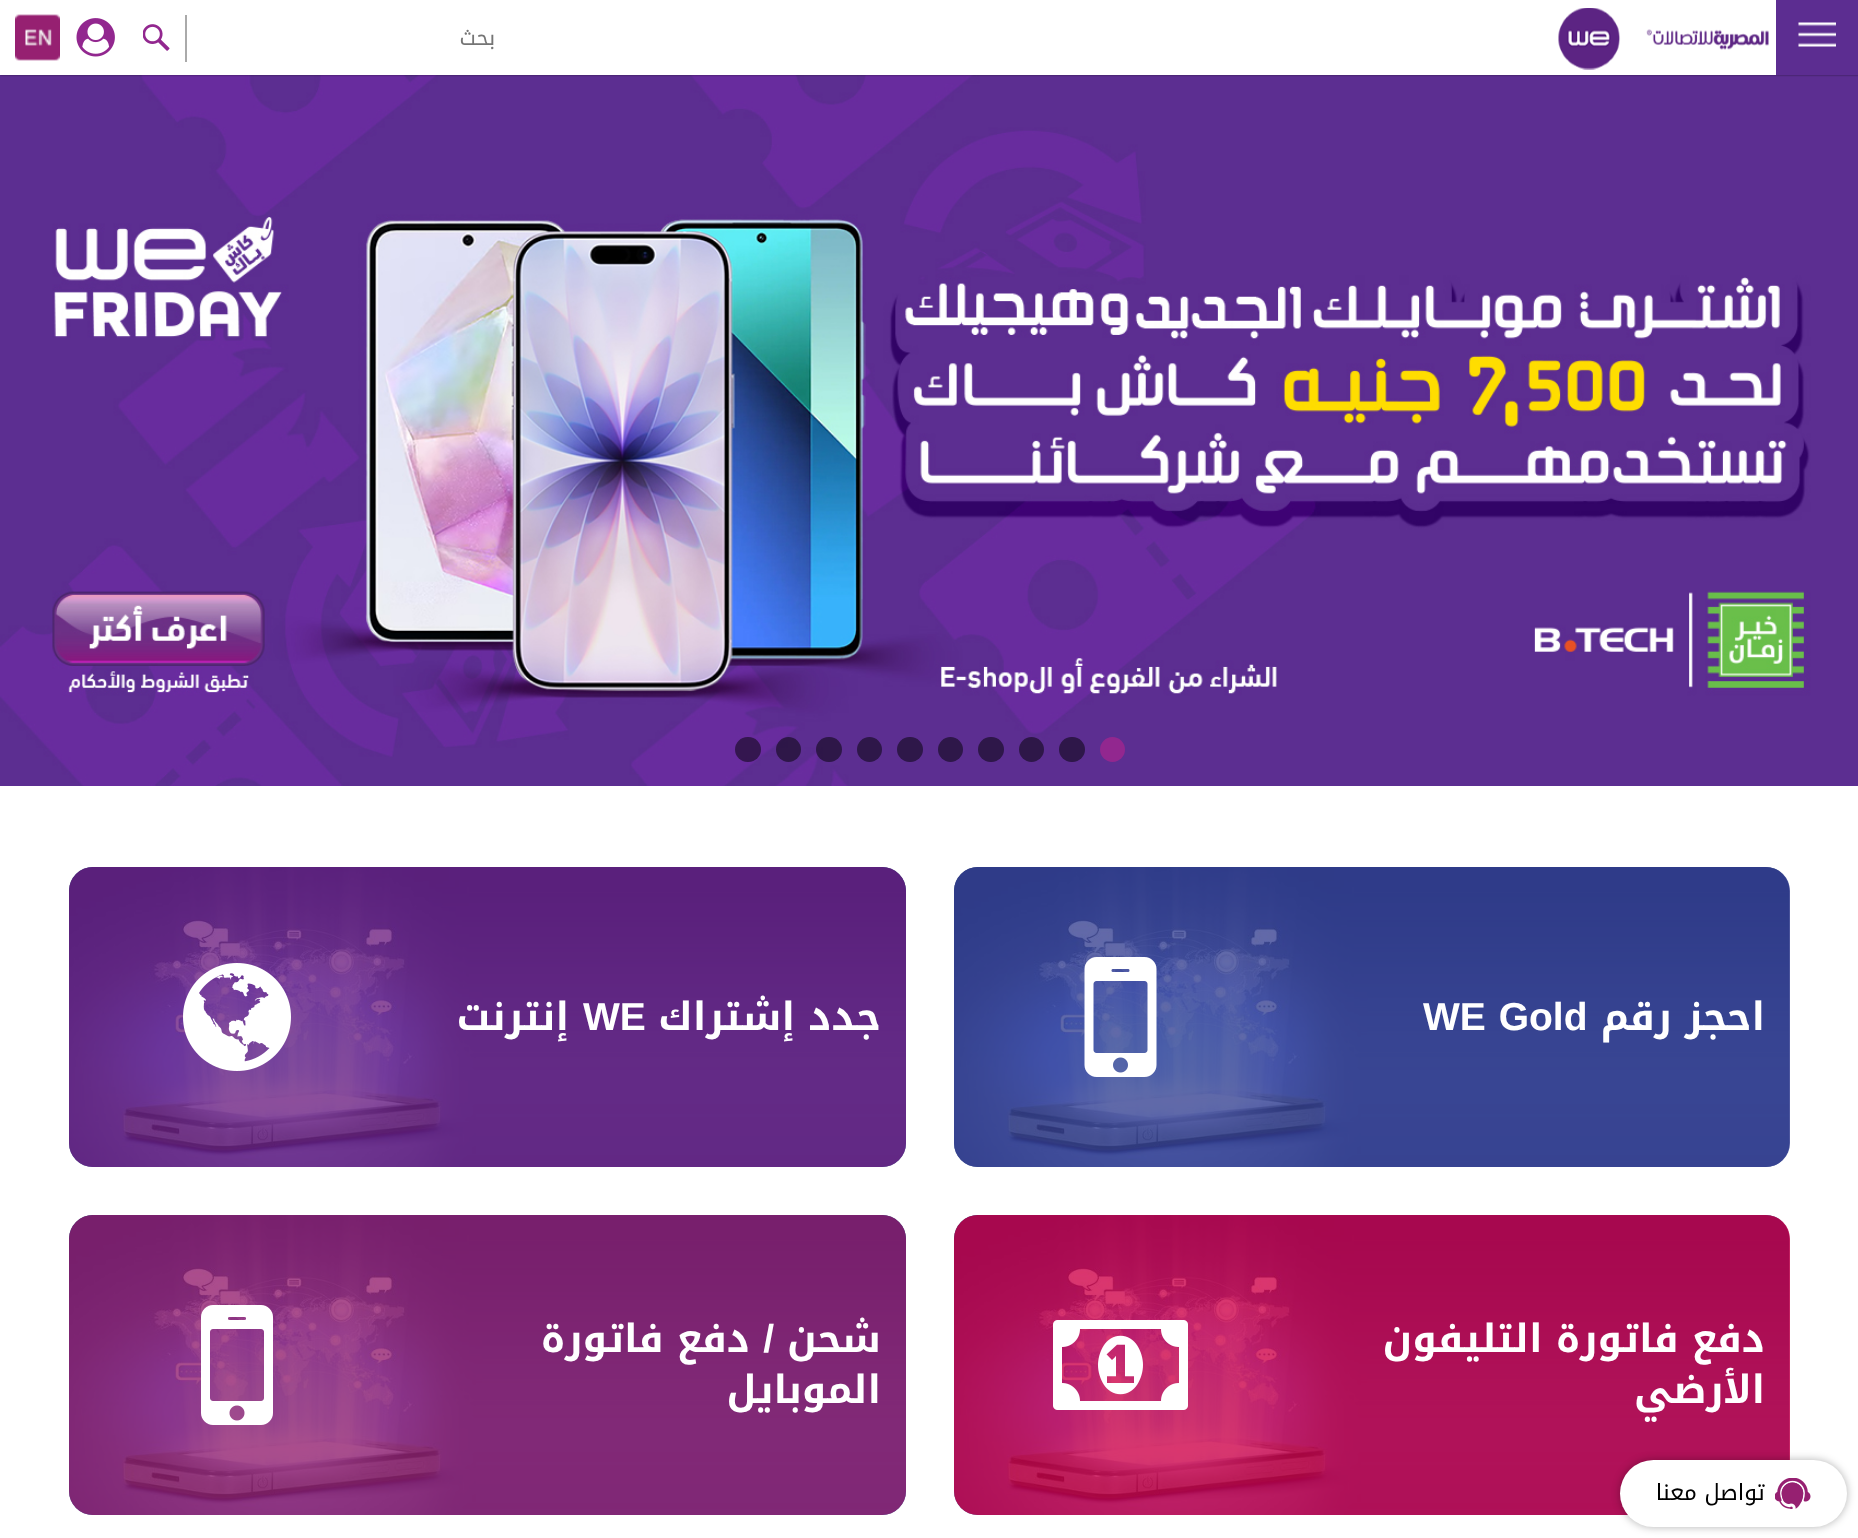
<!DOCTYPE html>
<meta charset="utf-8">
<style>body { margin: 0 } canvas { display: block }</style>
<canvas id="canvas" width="1858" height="1538"></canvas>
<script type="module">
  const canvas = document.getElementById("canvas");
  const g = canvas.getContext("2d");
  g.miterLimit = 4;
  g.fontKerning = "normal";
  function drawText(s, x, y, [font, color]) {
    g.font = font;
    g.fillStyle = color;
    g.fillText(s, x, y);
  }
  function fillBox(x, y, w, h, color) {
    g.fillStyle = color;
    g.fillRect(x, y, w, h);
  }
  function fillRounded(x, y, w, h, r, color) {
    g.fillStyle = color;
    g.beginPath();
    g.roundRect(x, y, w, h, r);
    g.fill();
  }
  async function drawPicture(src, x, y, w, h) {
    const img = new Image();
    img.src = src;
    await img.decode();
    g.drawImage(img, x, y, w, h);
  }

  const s1 = ["21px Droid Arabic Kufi", "#757575"];
  const s2 = ["bold 39px Droid Arabic Kufi", "#FFFFFF"];
  const s3 = ["bold 39px Liberation Sans", "#FFFFFF"];
  const s4 = ["22.5px 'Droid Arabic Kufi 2'", "#000000"];

  fillBox(0, 0, 1858, 1538, "#FFFFFF");
  await drawPicture("pic6.png", 0, 75, 1858, 711);
  g.save();
  g.beginPath();
  g.rect(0, 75, 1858, 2);
  g.clip();
  g.fillStyle = "rgba(0, 0, 0, 0.5)";
  g.filter = "blur(1px)";
  g.beginPath();
  g.rect(0, 0, 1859, 75);
  g.fill();
  g.filter = "none";
  g.restore();
  fillBox(1776, 0, 82, 75, "#5C2D91");
  await drawPicture("pic1.png", 1798, 22, 38, 25);
  await drawPicture("pic2.png", 1558, 8, 211, 62);
  fillBox(185, 15, 2, 47, "#AAAAAA");
  g.direction = "rtl";
  drawText("بحث", 495, 45, s1);
  await drawPicture("pic3.png", 143, 24, 27, 27);
  await drawPicture("pic4.png", 76, 18, 39, 39);
  await drawPicture("pic5.png", 15, 14, 45, 47);
  g.fillStyle = "#92278F";
  g.beginPath();
  g.arc(1112.5, 749.5, 12.5, 0, Math.PI * 2);
  g.fill();
  fillRounded(1059, 737, 26, 25, 12.5, "#2E1749");
  g.fillStyle = "rgba(0, 0, 0, 0.5)";
  g.beginPath();
  g.arc(1031.5, 749.5, 12.5, 0, Math.PI * 2);
  g.fill();
  fillRounded(978, 737, 26, 25, 12.5, "#2E1749");
  g.beginPath();
  g.arc(950.5, 749.5, 12.5, 0, Math.PI * 2);
  g.fill();
  fillRounded(897, 737, 26, 25, 12.5, "#2E1749");
  g.beginPath();
  g.arc(869.5, 749.5, 12.5, 0, Math.PI * 2);
  g.fill();
  fillRounded(816, 737, 26, 25, 12.5, "rgba(0, 0, 0, 0.5)");
  g.beginPath();
  g.arc(788.5, 749.5, 12.5, 0, Math.PI * 2);
  g.fill();
  fillRounded(735, 737, 26, 25, 12.5, "rgba(0, 0, 0, 0.5)");
  await drawPicture("pic7.png", 954, 867, 836, 300);
  fillRounded(954, 867, 836, 300, 24, "rgba(59, 67, 148, 0.8)");
  drawText("احجز رقم", 1765, 1030, s2);
  g.wordSpacing = "2px";
  g.direction = "ltr";
  drawText("WE Gold", 1423, 1030, s3);
  await drawPicture("pic8.png", 1084, 957, 73, 120);
  await drawPicture("pic9.png", 69, 867, 837, 300);
  fillRounded(69, 867, 837, 300, 24, "rgba(112, 34, 131, 0.8)");
  g.wordSpacing = "0px";
  g.direction = "rtl";
  drawText("جدد إشتراك", 881, 1030, s2);
  g.direction = "ltr";
  drawText("WE", 583, 1030, s3);
  g.direction = "rtl";
  drawText("إنترنت", 569, 1030, s2);
  await drawPicture("pic10.png", 183, 963, 108, 108);
  await drawPicture("pic11.png", 954, 1215, 836, 300);
  fillRounded(954, 1215, 836, 300, 24, "rgba(209, 4, 75, 0.8)");
  drawText("دفع فاتورة التليفون", 1765, 1352, s2);
  drawText("الأرضي", 1765, 1403, s2);
  await drawPicture("pic12.png", 1053, 1320, 135, 90);
  await drawPicture("pic13.png", 69, 1215, 837, 300);
  fillRounded(69, 1215, 837, 300, 24, "rgba(150, 32, 113, 0.8)");
  drawText("شحن", 881, 1352, s2);
  drawText("/", 774, 1352, s3);
  drawText("دفع فاتورة", 750, 1352, s2);
  drawText("الموبايل", 881, 1403, s2);
  await drawPicture("pic14.png", 201, 1305, 72, 120);
  g.fillStyle = "rgba(0, 0, 0, 0.3)";
  g.filter = "blur(4.5px)";
  g.beginPath();
  g.roundRect(1620, 1460, 227, 67, 33.5);
  g.fill();
  g.filter = "none";
  fillRounded(1620, 1460, 227, 67, 33.5, "#FFFFFF");
  await drawPicture("pic15.png", 1775, 1478, 36, 31);
  drawText("تواصل معنا", 1765, 1500, s4);
</script>
